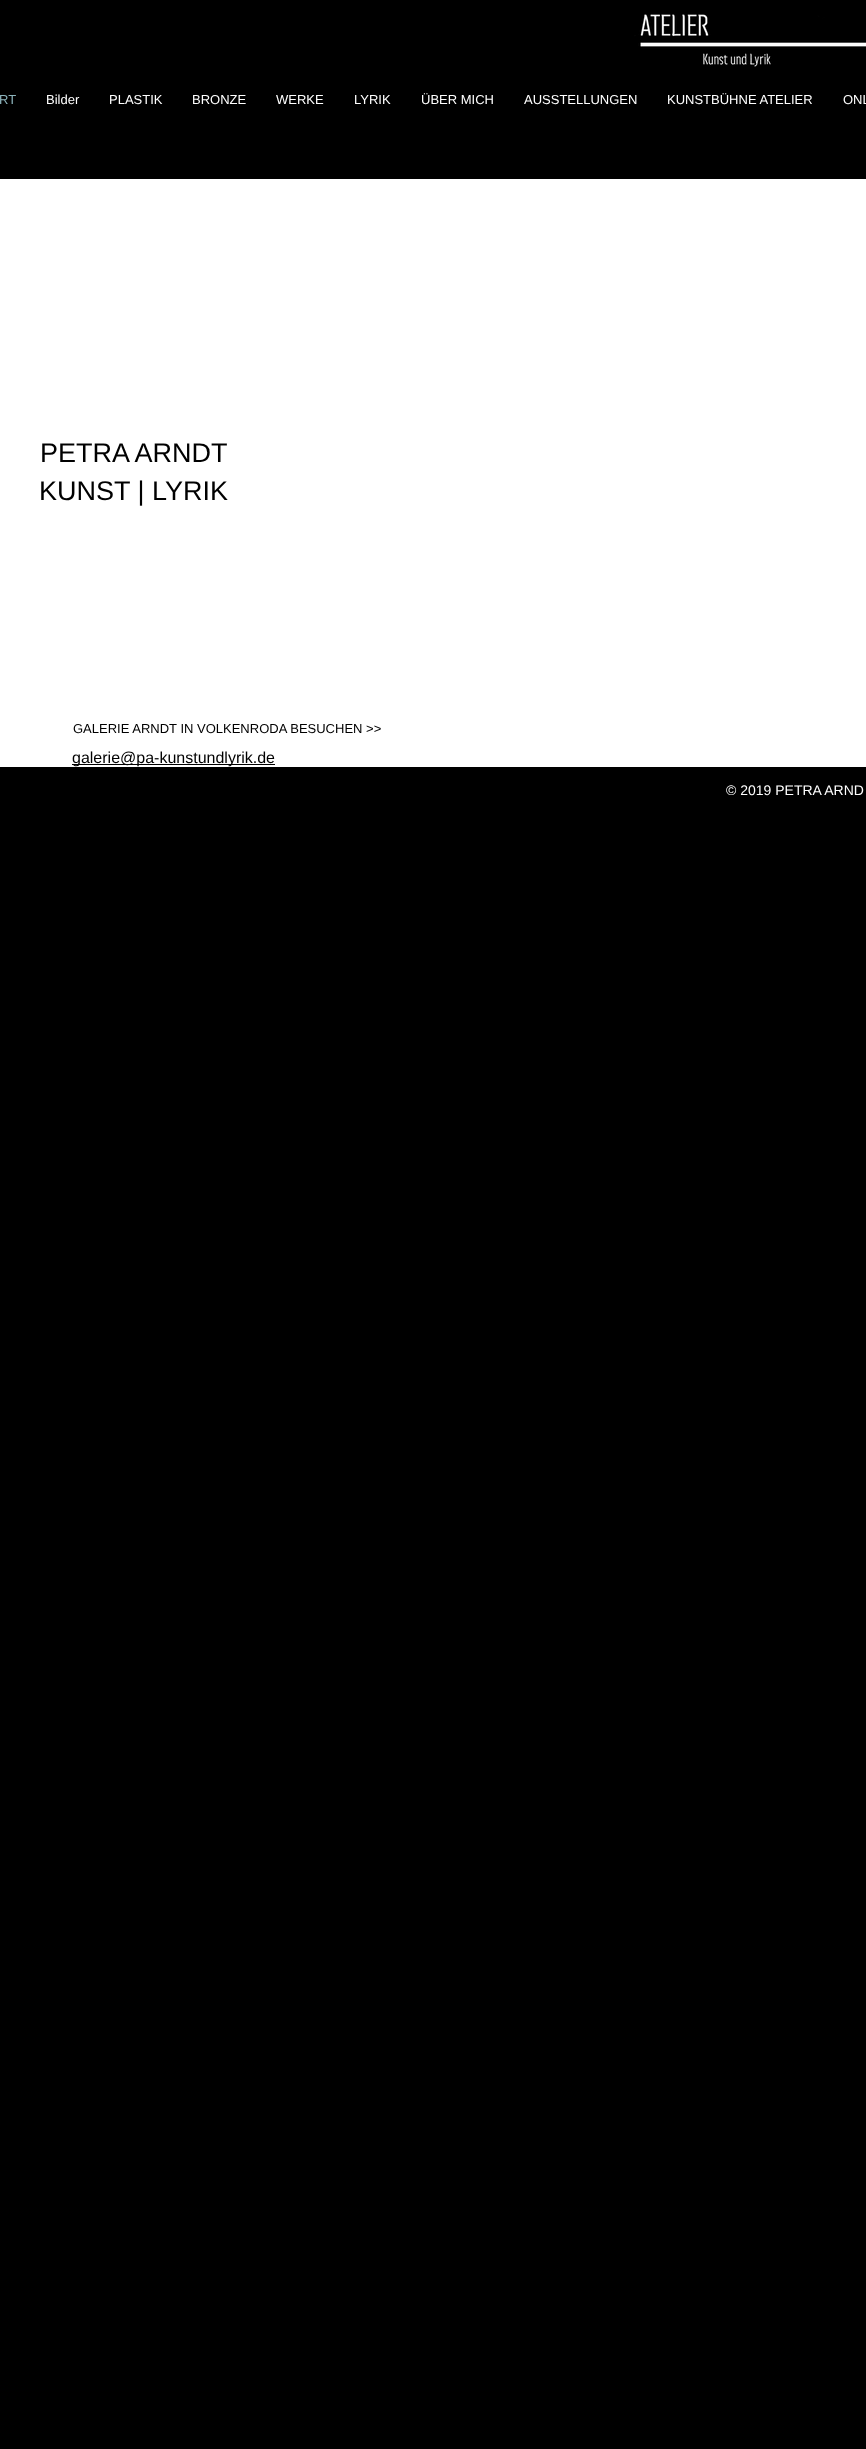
<!DOCTYPE html>
<meta charset="utf-8">
<style>body { margin: 0 } canvas { display: block }</style>
<canvas id="canvas" width="866" height="2449"></canvas>
<script type="module">
  const canvas = document.getElementById("canvas");
  const g = canvas.getContext("2d");
  g.miterLimit = 4;
  g.fontKerning = "normal";
  function drawText(s, x, y, [font, color]) {
    g.font = font;
    g.fillStyle = color;
    g.fillText(s, x, y);
  }
  function fillBox(x, y, w, h, color) {
    g.fillStyle = color;
    g.fillRect(x, y, w, h);
  }
  async function drawPicture(src, x, y, w, h) {
    const img = new Image();
    img.src = src;
    await img.decode();
    g.drawImage(img, x, y, w, h);
  }

  const s1 = ["13px Liberation Sans", "#8CB3BB"];
  const s2 = ["13px Liberation Sans", "#FFFFFF"];
  const s3 = ["27px Liberation Sans", "#000000"];
  const s4 = ["13px Liberation Sans", "#000000"];
  const s5 = ["16px Liberation Sans", "#000000"];
  const s6 = ["14px Liberation Sans", "#FFFFFF"];

  fillBox(0, 0, 866, 2449, "#000000");
  await drawPicture("pic1.png", 634, 14, 232, 53);
  drawText("RT", -1, 104, s1);
  drawText("Bilder", 46, 104, s2);
  drawText("PLASTIK", 109, 104, s2);
  drawText("BRONZE", 192, 104, s2);
  drawText("WERKE", 276, 104, s2);
  drawText("LYRIK", 354, 104, s2);
  drawText("ÜBER MICH", 421, 104, s2);
  drawText("AUSSTELLUNGEN", 524, 104, s2);
  drawText("KUNSTBÜHNE ATELIER", 667, 104, s2);
  drawText("ONL", 843, 104, s2);
  fillBox(0, 179, 866, 588, "#FFFFFF");
  drawText("PETRA ARNDT", 40, 462, s3);
  drawText("KUNST | LYRIK", 39, 500, s3);
  drawText("GALERIE ARNDT IN VOLKENRODA BESUCHEN >>", 73, 733, s4);
  fillBox(72, 764, 203, 1, "#000000");
  drawText("galerie@pa-kunstundlyrik.de", 72, 763, s5);
  drawText("© 2019 PETRA ARND", 726, 795, s6);
</script>
